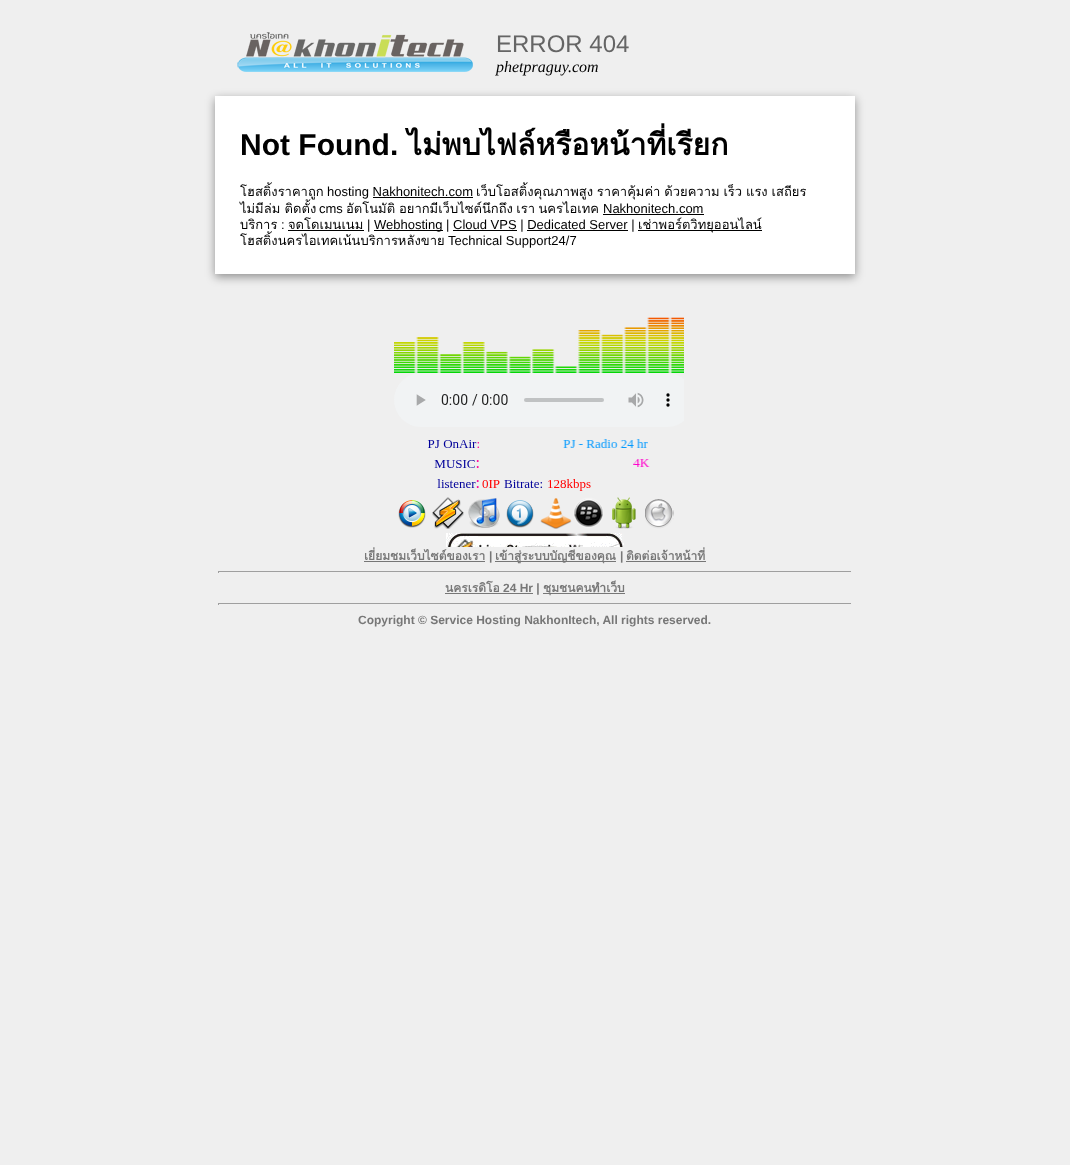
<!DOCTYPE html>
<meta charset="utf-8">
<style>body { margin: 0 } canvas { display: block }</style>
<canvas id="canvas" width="1070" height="1165"></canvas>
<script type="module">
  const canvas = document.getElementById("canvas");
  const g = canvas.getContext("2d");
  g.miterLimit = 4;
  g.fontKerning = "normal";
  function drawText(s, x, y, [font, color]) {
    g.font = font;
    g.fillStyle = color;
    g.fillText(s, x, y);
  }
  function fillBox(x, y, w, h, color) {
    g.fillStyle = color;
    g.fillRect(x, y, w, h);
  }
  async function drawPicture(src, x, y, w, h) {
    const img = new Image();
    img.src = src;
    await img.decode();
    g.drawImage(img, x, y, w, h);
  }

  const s1 = ["24px Liberation Sans", "#656565"];
  const s2 = ["italic 16px Liberation Serif", "#000000"];
  const s3 = ["bold 30px Liberation Sans", "#000000"];
  const s4 = ["bold 30px Loma", "#000000"];
  const s5 = ["13px Loma", "#000000"];
  const s6 = ["13px Liberation Sans", "#000000"];
  const s7 = ["bold 12px Loma", "#777777"];
  const s8 = ["bold 12px Liberation Sans", "#777777"];

  fillBox(0, 0, 1070, 1165, "#EFEFEF");
  await drawPicture("pic1.png", 237, 32, 236, 40);
  drawText("ERROR 404", 496, 52, s1);
  drawText("phetpraguy.com", 496, 72, s2);
  g.fillStyle = "rgba(0, 0, 0, 0.4)";
  g.filter = "blur(5px)";
  g.beginPath();
  g.rect(215, 99, 640, 178);
  g.fill();
  g.filter = "none";
  fillBox(215, 96, 640, 178, "#FFFFFF");
  drawText("Not Found.", 240, 155, s3);
  drawText("ไม่พบไฟล์หรือหน้าที่เรียก", 407, 155, s4);
  drawText("โฮสติ้งราคาถูก", 240, 196, s5);
  drawText("hosting Nakhonitech.com", 327, 196, s6);
  g.wordSpacing = "-0.5px";
  drawText("เว็บโอสติ้งคุณภาพสูง ราคาคุ้มค่า ด้วยความ เร็ว แรง เสถียร", 476, 196, s5);
  fillBox(373, 197, 100, 1, "#000000");
  g.wordSpacing = "0px";
  drawText("ไม่มีล่ม ติดตั้ง", 240, 213, s5);
  drawText("cms", 319, 213, s6);
  drawText("อัตโนมัติ", 346, 213, s5);
  g.wordSpacing = "-1px";
  drawText("อยากมีเว็บไซต์นึกถึง เรา นครไอเทค", 399, 213, s5);
  g.wordSpacing = "0px";
  drawText("Nakhonitech.com", 603, 213, s6);
  fillBox(603, 214, 101, 1, "#000000");
  drawText("บริการ", 240, 229, s5);
  drawText(":", 281, 229, s6);
  drawText("จดโดเมนเนม", 288, 229, s5);
  fillBox(288, 230, 76, 1, "#000000");
  drawText("|", 367, 229, s6);
  fillBox(374, 230, 69, 1, "#000000");
  drawText("Webhosting | Cloud VPS | Dedicated Server |", 374, 229, s6);
  fillBox(638, 230, 124, 1, "#000000");
  drawText("เช่าพอร์ตวิทยุออนไลน์", 638, 229, s5);
  fillBox(453, 230, 64, 1, "#000000");
  fillBox(527, 230, 101, 1, "#000000");
  drawText("โฮสติ้งนครไอเทคเน้นบริการหลังขาย", 240, 245, s5);
  drawText("Technical Support24/7", 448, 245, s6);
  await drawPicture("pic2.png", 394, 317, 290, 230);
  drawText("เยี่ยมชมเว็บไซต์ของเรา", 364, 560, s7);
  fillBox(364, 561, 121, 1, "#777777");
  drawText("|", 489, 560, s8);
  fillBox(495, 561, 121, 1, "#777777");
  drawText("เข้าสู่ระบบบัญชีของคุณ", 495, 560, s7);
  drawText("|", 620, 560, s8);
  drawText("ติดต่อเจ้าหน้าที่", 626, 560, s7);
  fillBox(626, 561, 80, 1, "#777777");
  fillBox(218, 571, 634, 1, "#9F9F9F");
  fillBox(851, 571, 1, 2, "#EEEEEE");
  fillBox(218, 571, 1, 2, "#9F9F9F");
  drawText("นครเรดิโอ", 445, 592, s7);
  fillBox(445, 593, 88, 1, "#777777");
  drawText("24 Hr |", 503, 592, s8);
  fillBox(543, 593, 82, 1, "#777777");
  drawText("ชุมชนคนทำเว็บ", 543, 592, s7);
  fillBox(218, 603, 634, 1, "#9F9F9F");
  fillBox(851, 603, 1, 2, "#EEEEEE");
  fillBox(218, 603, 1, 2, "#9F9F9F");
  drawText("Copyright © Service Hosting NakhonItech, All rights reserved.", 358, 624, s8);
</script>
